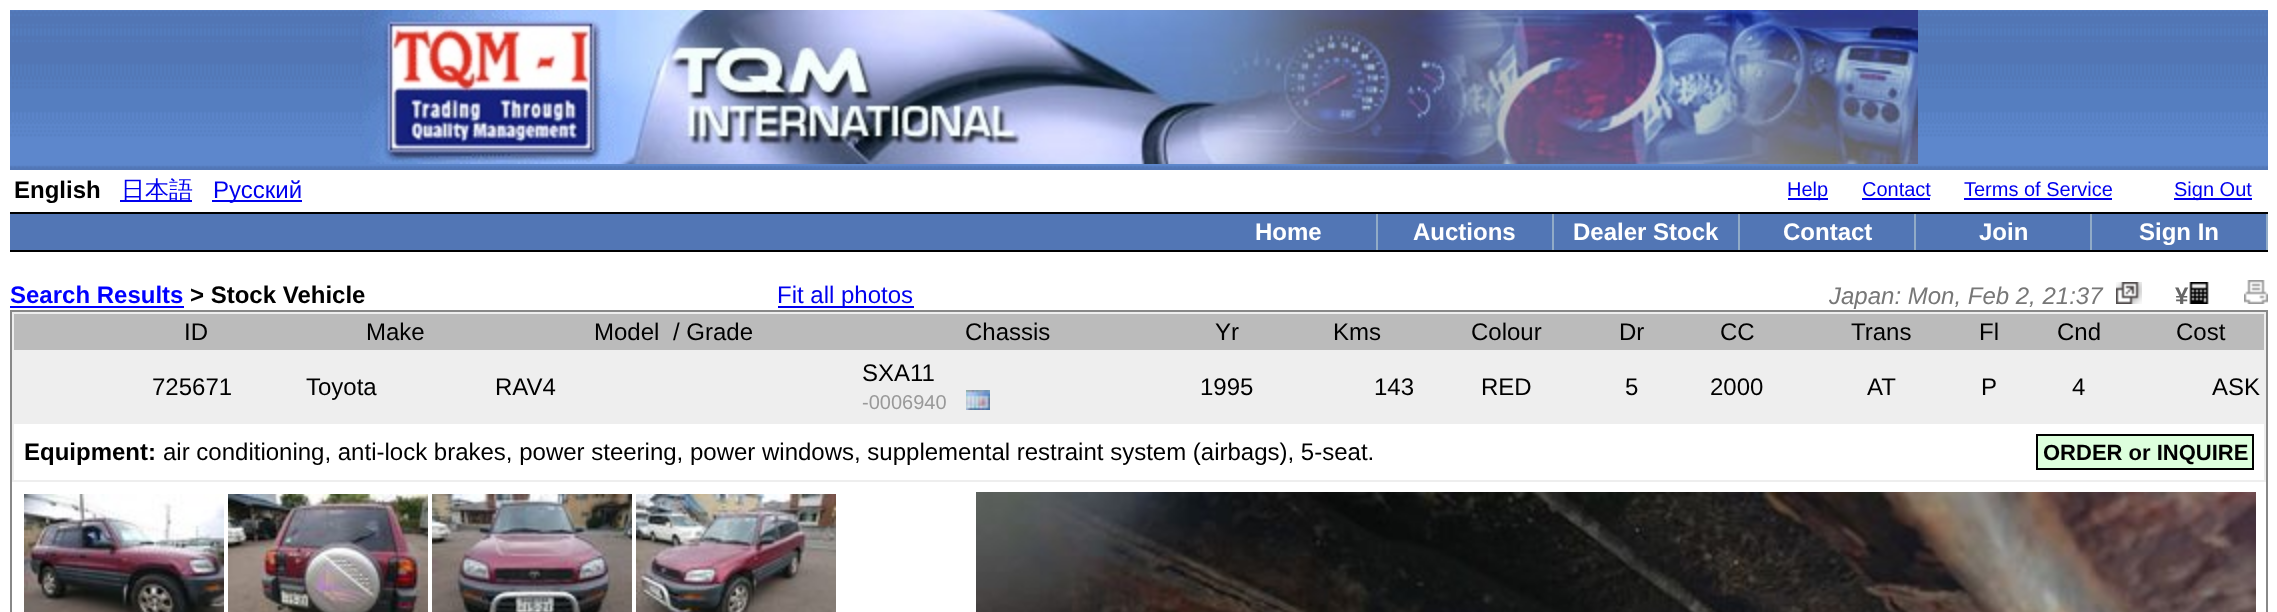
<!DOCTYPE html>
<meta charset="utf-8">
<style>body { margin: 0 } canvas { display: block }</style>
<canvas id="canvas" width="2277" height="612"></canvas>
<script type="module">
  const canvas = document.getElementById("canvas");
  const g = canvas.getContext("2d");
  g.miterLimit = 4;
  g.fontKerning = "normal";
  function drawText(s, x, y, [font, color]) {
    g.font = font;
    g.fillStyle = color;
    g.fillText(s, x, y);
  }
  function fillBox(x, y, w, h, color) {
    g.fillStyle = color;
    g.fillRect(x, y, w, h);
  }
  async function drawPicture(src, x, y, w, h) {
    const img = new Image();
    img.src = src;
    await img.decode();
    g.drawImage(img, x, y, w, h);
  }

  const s1 = ["bold 24px Liberation Sans", "#000000"];
  const s2 = ["500 24px WenQuanYi Zen Hei", "#0000EE"];
  const s3 = ["24px Liberation Sans", "#0000EE"];
  const s4 = ["20px Liberation Sans", "#0000EE"];
  const s5 = ["bold 24px Liberation Sans", "#FFFFFF"];
  const s6 = ["bold 24px Liberation Sans", "#0000FF"];
  const s7 = ["italic 24px Liberation Sans", "#777777"];
  const s8 = ["bold 24px Liberation Sans", "#666666"];
  const s9 = ["24px Liberation Sans", "#000000"];
  const s10 = ["20px Liberation Sans", "#999999"];
  const s11 = ["bold 22px Liberation Sans", "#000000"];

  fillBox(0, 0, 2277, 612, "#FFFFFF");
  await drawPicture("pic1.png", 10, 10, 2258, 160);
  await drawPicture("pic2.png", 360, 10, 1558, 154);
  drawText("English", 14, 198, s1);
  fillBox(120, 200, 72, 2, "#0000EE");
  drawText("日本語", 121, 198, s2);
  fillBox(212, 200, 90, 2, "#0000EE");
  drawText("Русский", 213, 198, s3);
  fillBox(1788, 198, 40, 2, "#0000EE");
  drawText("Help", 1787, 196, s4);
  drawText("Contact", 1862, 196, s4);
  fillBox(1862, 198, 68, 2, "#0000EE");
  drawText("Terms of Service", 1964, 196, s4);
  fillBox(1964, 198, 148, 2, "#0000EE");
  fillBox(2174, 198, 78, 2, "#0000EE");
  drawText("Sign Out", 2174, 196, s4);
  fillBox(10, 214, 2256, 36, "#5276B5");
  fillBox(10, 212, 2258, 2, "#000000");
  fillBox(10, 250, 2258, 2, "#000000");
  fillBox(1376, 214, 2, 36, "#91ABC7");
  drawText("Home", 1255, 240, s5);
  fillBox(1552, 214, 2, 36, "#91ABC7");
  drawText("Auctions", 1413, 240, s5);
  fillBox(1738, 214, 2, 36, "#91ABC7");
  drawText("Dealer Stock", 1573, 240, s5);
  fillBox(1914, 214, 2, 36, "#91ABC7");
  drawText("Contact", 1783, 240, s5);
  fillBox(2090, 214, 2, 36, "#91ABC7");
  drawText("Join", 1979, 240, s5);
  fillBox(2266, 214, 2, 36, "#91ABC7");
  drawText("Sign In", 2139, 240, s5);
  drawText("Search Results", 10, 303, s6);
  fillBox(10, 306, 174, 2, "#0000FF");
  drawText("> Stock Vehicle", 190, 303, s1);
  fillBox(778, 306, 136, 2, "#0000EE");
  drawText("Fit all photos", 777, 303, s3);
  drawText("Japan: Mon, Feb 2, 21:37", 1829, 304, s7);
  await drawPicture("pic3.png", 2116, 282, 26, 22);
  drawText("¥", 2175, 304, s8);
  await drawPicture("pic4.png", 2189, 282, 20, 22);
  await drawPicture("pic5.png", 2244, 280, 24, 24);
  g.strokeStyle = "#888888";
  g.lineWidth = 2;
  g.strokeRect(11, 311, 2256, 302);
  fillBox(12, 312, 2254, 170, "#EEEEEE");
  fillBox(14, 314, 2250, 36, "#BBBBBB");
  drawText("ID", 184, 340, s9);
  drawText("Make", 366, 340, s9);
  drawText("Model", 594, 340, s9);
  drawText("/ Grade", 673, 340, s9);
  drawText("Chassis", 965, 340, s9);
  drawText("Yr", 1215, 340, s9);
  drawText("Kms", 1333, 340, s9);
  drawText("Colour", 1471, 340, s9);
  drawText("Dr", 1619, 340, s9);
  drawText("CC", 1720, 340, s9);
  drawText("Trans", 1851, 340, s9);
  drawText("Fl", 1979, 340, s9);
  drawText("Cnd", 2057, 340, s9);
  drawText("Cost", 2176, 340, s9);
  drawText("725671", 152, 395, s9);
  drawText("Toyota", 306, 395, s9);
  drawText("RAV4", 495, 395, s9);
  drawText("SXA11", 862, 381, s9);
  drawText("-0006940", 862, 409, s10);
  await drawPicture("pic6.png", 966, 390, 24, 20);
  drawText("1995", 1200, 395, s9);
  drawText("143", 1374, 395, s9);
  drawText("RED", 1481, 395, s9);
  drawText("5", 1625, 395, s9);
  drawText("2000", 1710, 395, s9);
  drawText("AT", 1867, 395, s9);
  drawText("P", 1981, 395, s9);
  drawText("4", 2072, 395, s9);
  drawText("ASK", 2212, 395, s9);
  fillBox(14, 424, 2250, 56, "#FFFFFF");
  drawText("Equipment:", 24, 460, s1);
  drawText("air conditioning, anti-lock brakes, power steering, power windows, supplemental restraint system (airbags), 5-seat.", 163, 460, s9);
  g.fillStyle = "#DDFFDD";
  g.beginPath();
  g.rect(2037, 435, 216, 34);
  g.fill();
  g.strokeStyle = "#000000";
  g.stroke();
  drawText("ORDER or INQUIRE", 2043, 460, s11);
  await drawPicture("pic7.png", 24, 494, 200, 118);
  await drawPicture("pic8.png", 228, 494, 200, 118);
  await drawPicture("pic9.png", 432, 494, 200, 118);
  await drawPicture("pic10.png", 636, 494, 200, 118);
  await drawPicture("pic11.png", 976, 492, 1280, 120);
</script>
